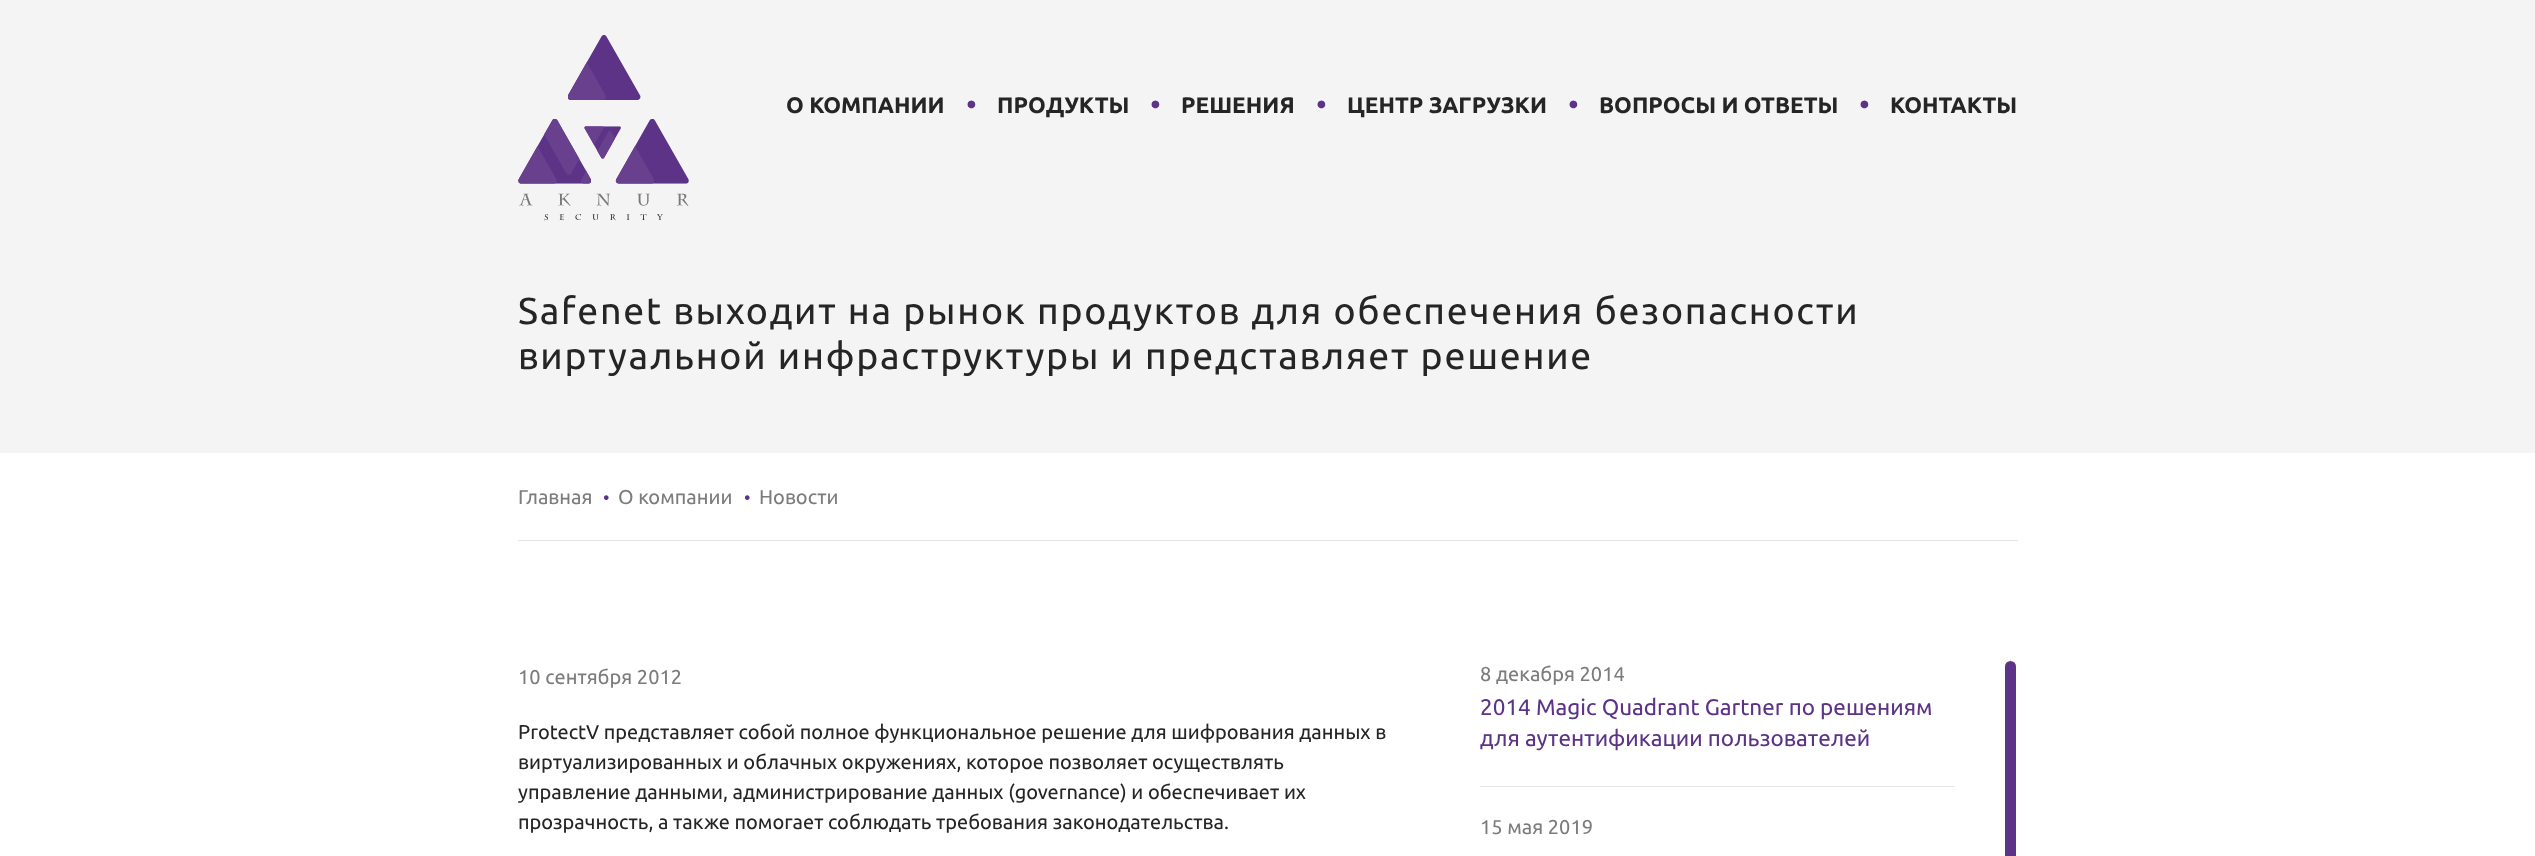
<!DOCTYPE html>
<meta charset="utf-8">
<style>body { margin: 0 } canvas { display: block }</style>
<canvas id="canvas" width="2535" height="856"></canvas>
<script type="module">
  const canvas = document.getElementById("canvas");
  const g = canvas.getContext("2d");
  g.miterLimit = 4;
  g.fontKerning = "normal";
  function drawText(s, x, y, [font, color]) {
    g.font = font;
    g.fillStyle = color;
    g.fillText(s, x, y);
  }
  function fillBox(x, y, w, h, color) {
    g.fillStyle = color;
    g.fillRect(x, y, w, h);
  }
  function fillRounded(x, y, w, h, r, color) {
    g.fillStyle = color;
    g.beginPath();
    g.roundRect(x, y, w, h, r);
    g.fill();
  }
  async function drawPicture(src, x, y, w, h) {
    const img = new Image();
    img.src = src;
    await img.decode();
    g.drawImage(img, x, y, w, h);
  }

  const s1 = ["bold 22.5px Ubuntu", "#252525"];
  const s2 = ["30px Ubuntu", "#5C3387"];
  const s3 = ["37.5px Ubuntu", "#252525"];
  const s4 = ["20px Ubuntu", "#7B7C7E"];
  const s5 = ["18px Ubuntu", "#5C3387"];
  const s6 = ["20px Ubuntu", "#252525"];
  const s7 = ["22.5px Ubuntu", "#5C3387"];

  fillBox(0, 0, 2535, 856, "#FFFFFF");
  fillBox(0, 0, 2535, 453, "#F4F4F4");
  await drawPicture("pic1.png", 568, 35, 73, 65);
  await drawPicture("pic2.png", 518, 119, 73, 65);
  await drawPicture("pic3.png", 584, 126, 37, 33);
  await drawPicture("pic4.png", 615, 119, 74, 65);
  await drawPicture("pic5.png", 519, 193, 170, 13);
  await drawPicture("pic6.png", 544, 214, 119, 7);
  drawText("О КОМПАНИИ", 786, 113, s1);
  drawText("•", 966, 115, s2);
  drawText("ПРОДУКТЫ", 997, 113, s1);
  drawText("•", 1150, 115, s2);
  drawText("РЕШЕНИЯ", 1181, 113, s1);
  drawText("•", 1316, 115, s2);
  drawText("ЦЕНТР ЗАГРУЗКИ", 1347, 113, s1);
  drawText("•", 1568, 115, s2);
  drawText("ВОПРОСЫ И ОТВЕТЫ", 1599, 113, s1);
  drawText("•", 1859, 115, s2);
  drawText("КОНТАКТЫ", 1890, 113, s1);
  g.letterSpacing = "1.75px";
  drawText("Safenet выходит на рынок продуктов для обеспечения безопасности", 518, 324, s3);
  drawText("виртуальной инфраструктуры и представляет решение", 518, 369, s3);
  fillBox(518, 540, 1500, 1, "#E4E4E4");
  g.letterSpacing = "0px";
  drawText("Главная", 518, 504, s4);
  drawText("•", 603, 504, s5);
  drawText("О компании", 618, 504, s4);
  drawText("•", 744, 504, s5);
  drawText("Новости", 759, 504, s4);
  drawText("10 сентября 2012", 518, 684, s4);
  drawText("ProtectV представляет собой полное функциональное решение для шифрования данных в", 518, 739, s6);
  drawText("виртуализированных и облачных окружениях, которое позволяет осуществлять", 518, 769, s6);
  drawText("управление данными, администрирование данных (governance) и обеспечивает их", 518, 799, s6);
  drawText("прозрачность, а также помогает соблюдать требования законодательства.", 518, 829, s6);
  fillBox(2010, 659, 1, 3, "#E4E4E4");
  fillBox(1480, 786, 475, 1, "#E4E4E4");
  drawText("8 декабря 2014", 1480, 681, s4);
  drawText("2014 Magic Quadrant Gartner по решениям", 1480, 715, s7);
  drawText("для аутентификации пользователей", 1480, 746, s7);
  drawText("15 мая 2019", 1480, 834, s4);
  fillRounded(2005, 661, 11, 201, 5.5, "#5C3387");
</script>
